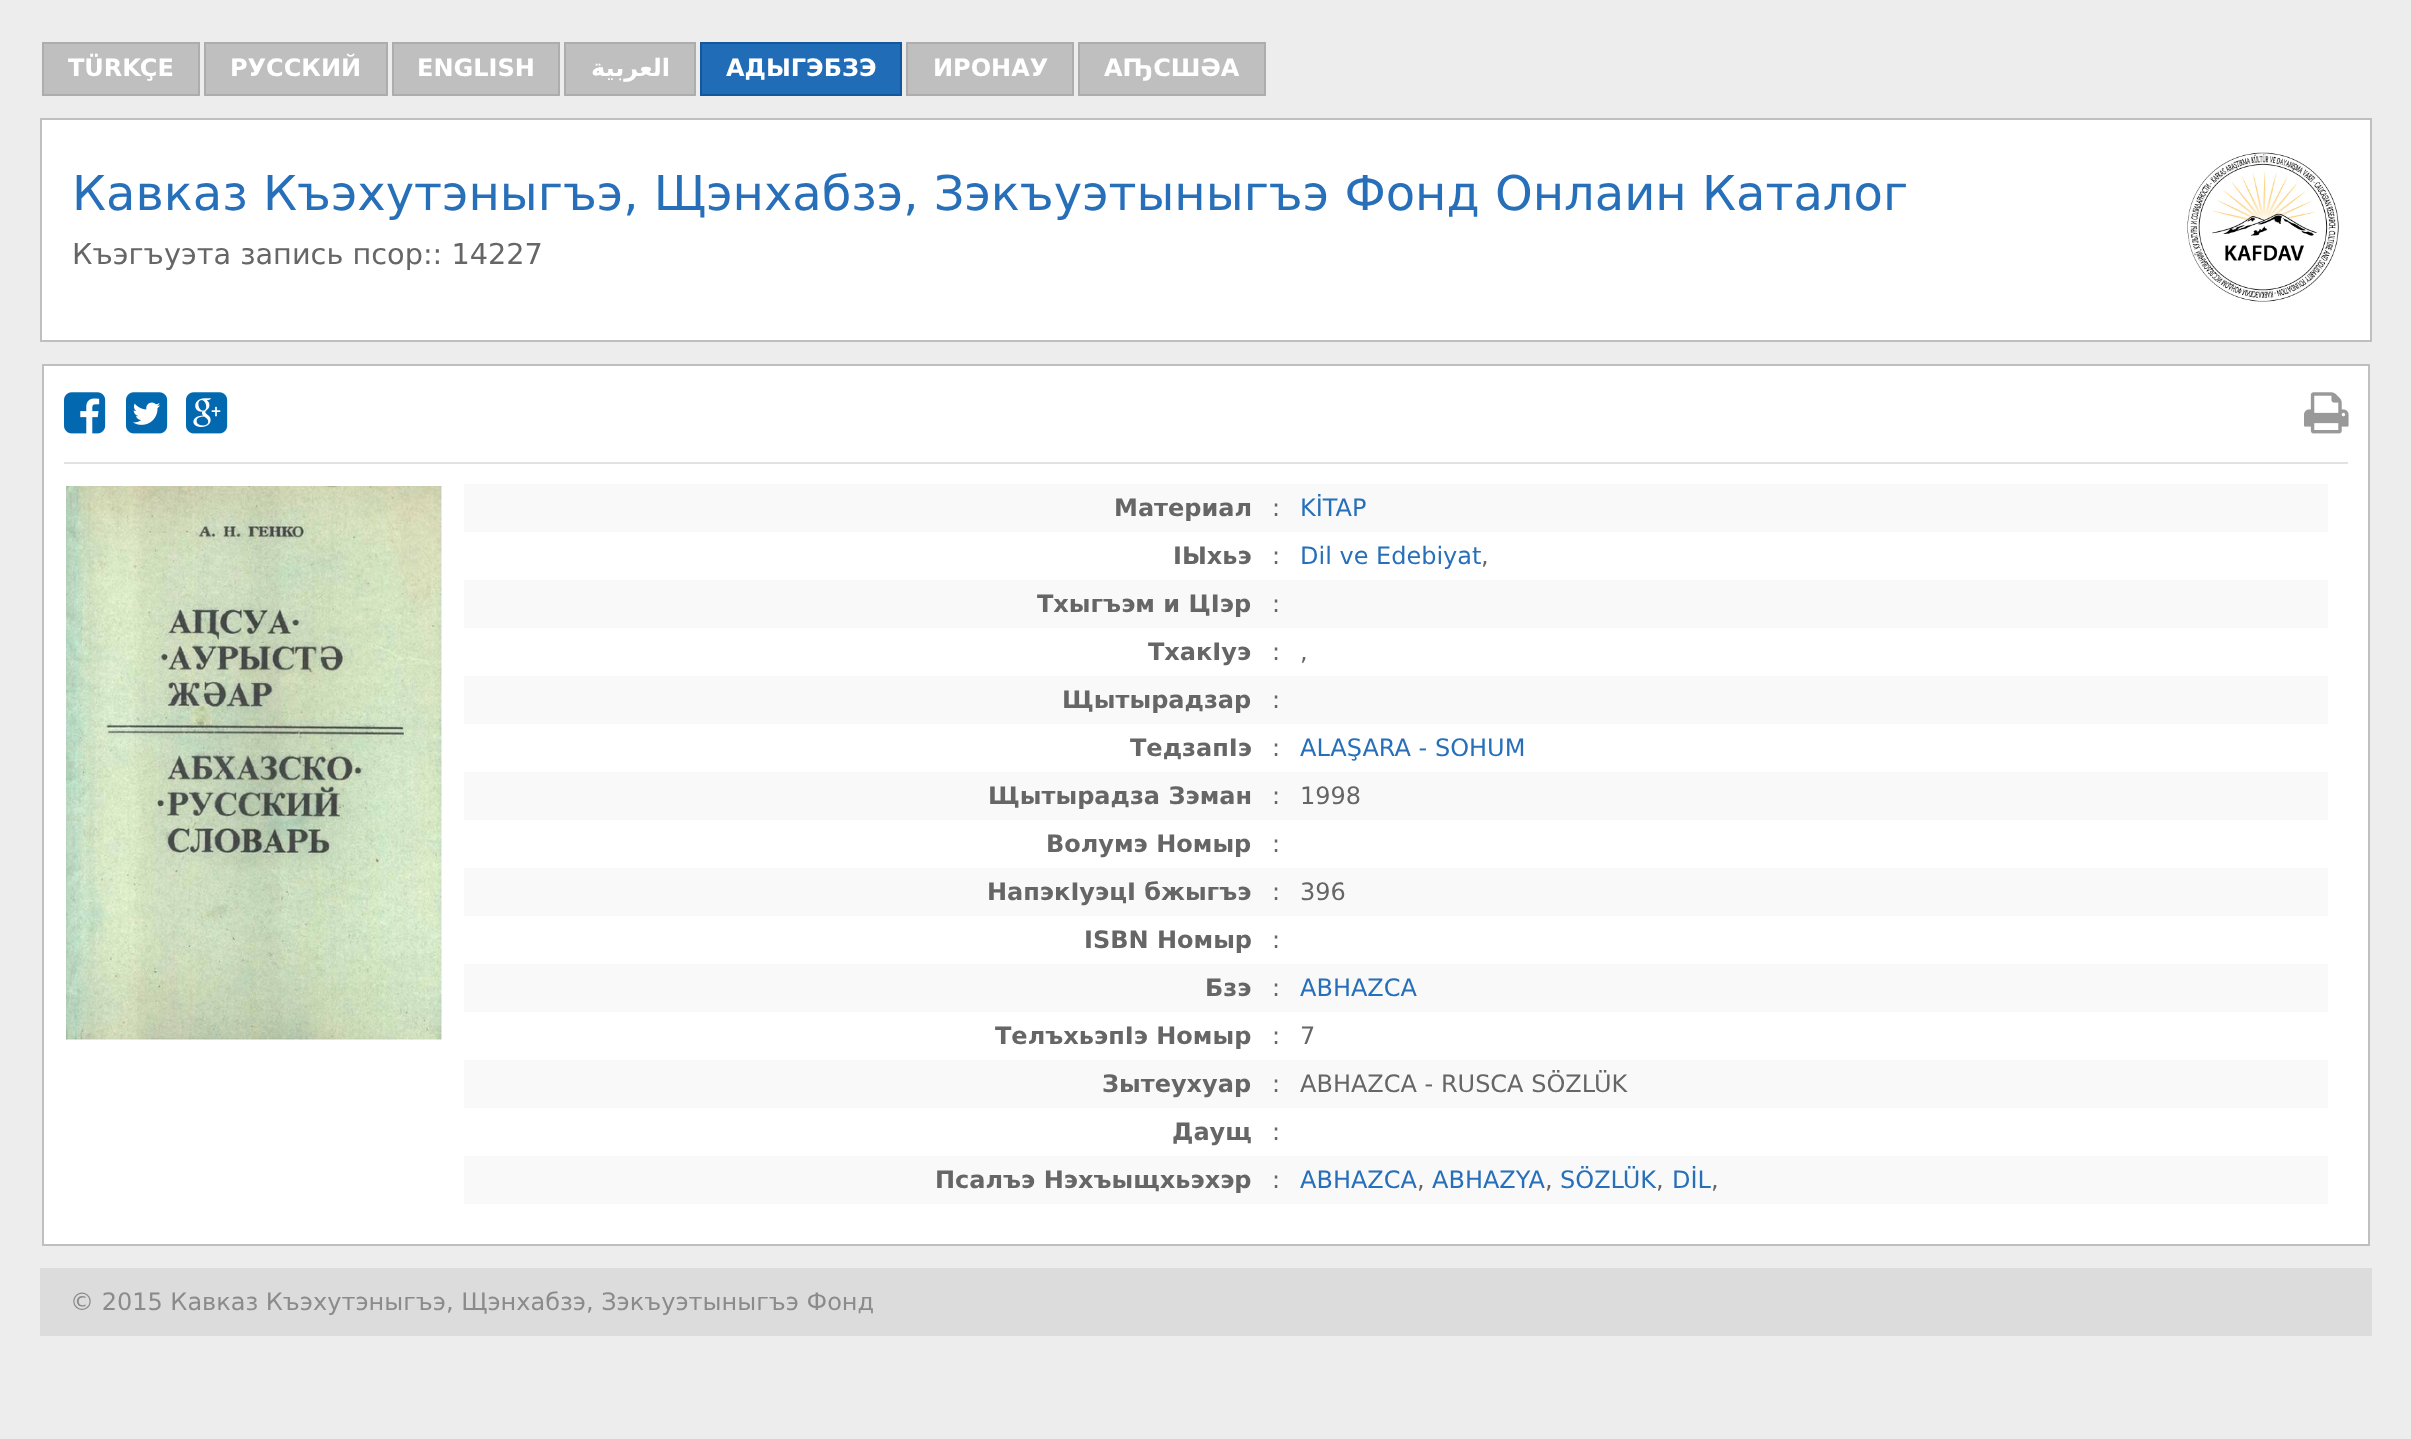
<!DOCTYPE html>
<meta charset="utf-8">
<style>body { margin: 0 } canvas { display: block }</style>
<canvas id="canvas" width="2411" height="1439"></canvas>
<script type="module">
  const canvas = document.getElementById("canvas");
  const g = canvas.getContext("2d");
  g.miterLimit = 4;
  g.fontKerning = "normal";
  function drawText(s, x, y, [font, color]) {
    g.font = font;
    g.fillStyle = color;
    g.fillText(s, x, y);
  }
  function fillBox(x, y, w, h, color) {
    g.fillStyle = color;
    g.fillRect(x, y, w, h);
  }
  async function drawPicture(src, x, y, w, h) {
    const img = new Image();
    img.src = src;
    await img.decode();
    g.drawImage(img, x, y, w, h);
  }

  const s1 = ["bold 24px DejaVu Sans", "#FFFFFF"];
  const s2 = ["48px DejaVu Sans", "#2770B9"];
  const s3 = ["28.75px DejaVu Sans", "#666666"];
  const s4 = ["bold 24px DejaVu Sans", "#666666"];
  const s5 = ["24px DejaVu Sans", "#666666"];
  const s6 = ["24px DejaVu Sans", "#2770B9"];
  const s7 = ["24px DejaVu Sans", "#8B8B8B"];

  fillBox(0, 0, 2411, 1439, "#EDEDED");
  g.fillStyle = "#BFBFBF";
  g.beginPath();
  g.rect(43, 43, 156, 52);
  g.fill();
  g.strokeStyle = "#ADADAD";
  g.lineWidth = 2;
  g.stroke();
  drawText("TÜRKÇE", 68, 76, s1);
  g.fillStyle = "#BFBFBF";
  g.beginPath();
  g.rect(205, 43, 182, 52);
  g.fill();
  g.stroke();
  drawText("РУССКИЙ", 230, 76, s1);
  g.fillStyle = "#BFBFBF";
  g.beginPath();
  g.rect(393, 43, 166, 52);
  g.fill();
  g.stroke();
  drawText("ENGLISH", 417, 76, s1);
  g.fillStyle = "#BFBFBF";
  g.beginPath();
  g.rect(565, 43, 130, 52);
  g.fill();
  g.stroke();
  g.direction = "rtl";
  drawText("العربية", 670, 76, s1);
  g.fillStyle = "#216CB7";
  g.beginPath();
  g.rect(701, 43, 200, 52);
  g.fill();
  g.strokeStyle = "#13589C";
  g.stroke();
  g.direction = "ltr";
  drawText("АДЫГЭБЗЭ", 726, 76, s1);
  g.fillStyle = "#BFBFBF";
  g.beginPath();
  g.rect(907, 43, 166, 52);
  g.fill();
  g.strokeStyle = "#ADADAD";
  g.stroke();
  drawText("ИРОНАУ", 933, 76, s1);
  g.fillStyle = "#BFBFBF";
  g.beginPath();
  g.rect(1079, 43, 186, 52);
  g.fill();
  g.stroke();
  drawText("АҦСШӘА", 1104, 76, s1);
  g.beginPath();
  g.rect(41, 119, 2330, 222);
  g.fill();
  g.strokeStyle = "#BFBFBF";
  g.stroke();
  drawText("Кавказ Къэхутэныгъэ, Щэнхабзэ, Зэкъуэтыныгъэ Фонд Онлаин Каталог", 72, 210, s2);
  await drawPicture("pic1.png", 2187, 152, 152, 150);
  drawText("Къэгъуэта запись псор:: 14227", 72, 264, s3);
  g.fillStyle = "#FFFFFF";
  g.beginPath();
  g.rect(43, 365, 2326, 880);
  g.fill();
  g.stroke();
  await drawPicture("pic2.png", 64, 392, 42, 42);
  await drawPicture("pic3.png", 126, 392, 42, 42);
  await drawPicture("pic4.png", 186, 392, 42, 42);
  await drawPicture("pic5.png", 2304, 392, 45, 42);
  fillBox(64, 462, 2284, 2, "#E2E2E2");
  await drawPicture("pic6.png", 66, 486, 376, 554);
  fillBox(464, 484, 1864, 48, "#F9F9F9");
  drawText("Материал", 1114, 516, s4);
  drawText(":", 1272, 516, s5);
  drawText("KİTAP", 1300, 516, s6);
  drawText("IЫхьэ", 1173, 564, s4);
  drawText(":", 1272, 564, s5);
  drawText("Dil ve Edebiyat", 1300, 564, s6);
  drawText(",", 1481, 564, s5);
  fillBox(464, 580, 1864, 48, "#F9F9F9");
  drawText("Тхыгъэм и ЦIэр", 1037, 612, s4);
  drawText(":", 1272, 612, s5);
  drawText("ТхакIуэ", 1148, 660, s4);
  drawText(":", 1272, 660, s5);
  drawText(",", 1300, 660, s5);
  fillBox(464, 676, 1864, 48, "#F9F9F9");
  drawText("Щытырадзар", 1062, 708, s4);
  drawText(":", 1272, 708, s5);
  drawText("ТедзапIэ", 1130, 756, s4);
  drawText(":", 1272, 756, s5);
  drawText("ALAŞARA - SOHUM", 1300, 756, s6);
  fillBox(464, 772, 1864, 48, "#F9F9F9");
  drawText("Щытырадза Зэман", 988, 804, s4);
  drawText(":", 1272, 804, s5);
  drawText("1998", 1300, 804, s5);
  drawText("Волумэ Номыр", 1046, 852, s4);
  drawText(":", 1272, 852, s5);
  fillBox(464, 868, 1864, 48, "#F9F9F9");
  drawText("НапэкIуэцI бжыгъэ", 987, 900, s4);
  drawText(":", 1272, 900, s5);
  drawText("396", 1300, 900, s5);
  drawText("ISBN Номыр", 1084, 948, s4);
  drawText(":", 1272, 948, s5);
  fillBox(464, 964, 1864, 48, "#F9F9F9");
  drawText("Бзэ", 1205, 996, s4);
  drawText(":", 1272, 996, s5);
  drawText("ABHAZCA", 1300, 996, s6);
  drawText("ТелъхьэпIэ Номыр", 995, 1044, s4);
  drawText(":", 1272, 1044, s5);
  drawText("7", 1300, 1044, s5);
  fillBox(464, 1060, 1864, 48, "#F9F9F9");
  drawText("Зытеухуар", 1102, 1092, s4);
  drawText(":", 1272, 1092, s5);
  drawText("ABHAZCA - RUSCA SÖZLÜK", 1300, 1092, s5);
  drawText("Даущ", 1172, 1140, s4);
  drawText(":", 1272, 1140, s5);
  fillBox(464, 1156, 1864, 48, "#F9F9F9");
  drawText("Псалъэ Нэхъыщхьэхэр", 935, 1188, s4);
  drawText(":", 1272, 1188, s5);
  drawText("ABHAZCA", 1300, 1188, s6);
  drawText(",", 1417, 1188, s5);
  drawText("ABHAZYA", 1432, 1188, s6);
  drawText(",", 1545, 1188, s5);
  drawText("SÖZLÜK", 1560, 1188, s6);
  drawText(",", 1656, 1188, s5);
  drawText("DİL", 1672, 1188, s6);
  drawText(",", 1711, 1188, s5);
  fillBox(40, 1268, 2332, 68, "#DCDCDC");
  drawText("© 2015 Кавказ Къэхутэныгъэ, Щэнхабзэ, Зэкъуэтыныгъэ Фонд", 70, 1310, s7);
</script>
